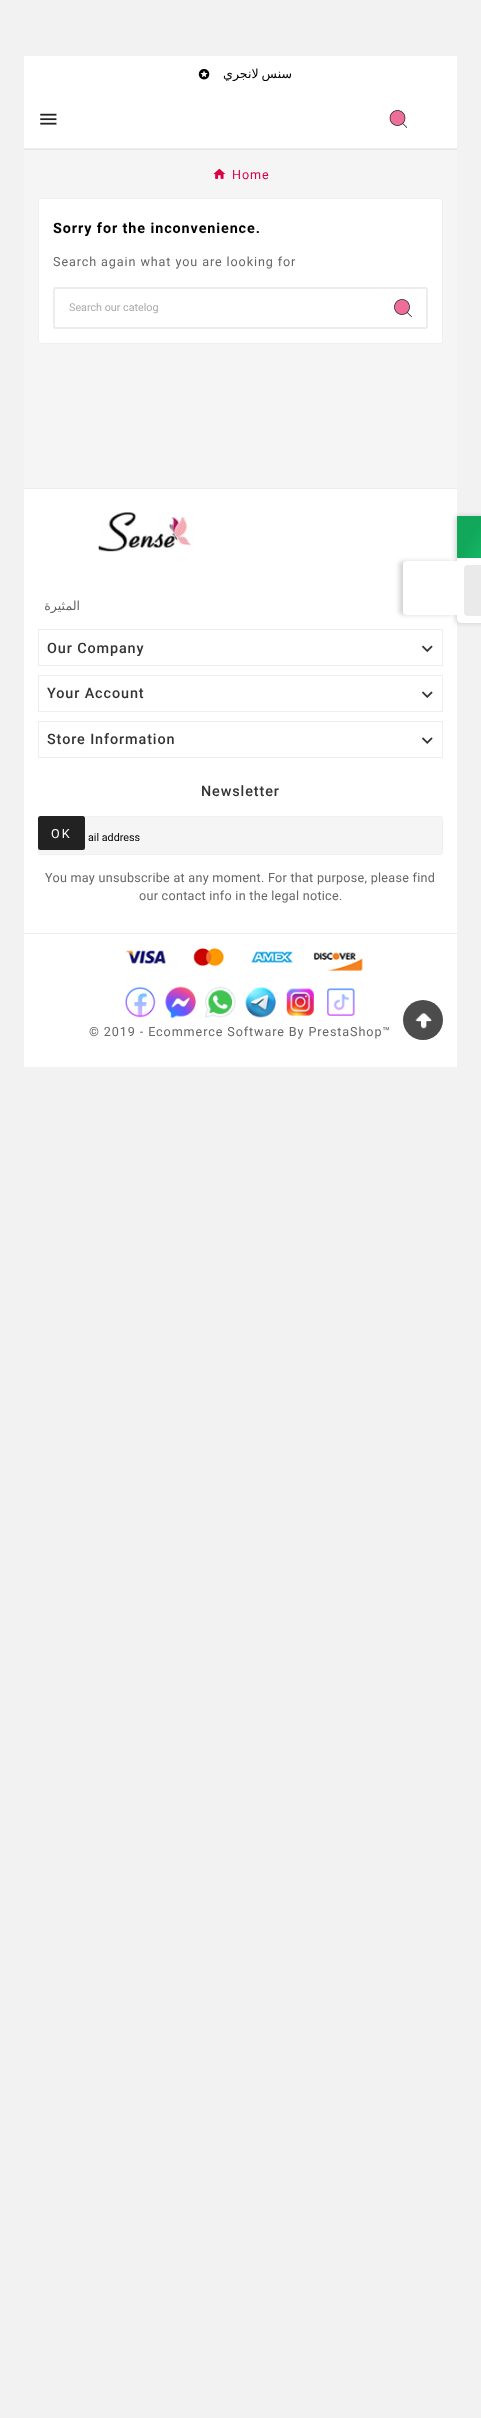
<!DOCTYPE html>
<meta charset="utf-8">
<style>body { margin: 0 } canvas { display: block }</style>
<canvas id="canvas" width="481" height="2418"></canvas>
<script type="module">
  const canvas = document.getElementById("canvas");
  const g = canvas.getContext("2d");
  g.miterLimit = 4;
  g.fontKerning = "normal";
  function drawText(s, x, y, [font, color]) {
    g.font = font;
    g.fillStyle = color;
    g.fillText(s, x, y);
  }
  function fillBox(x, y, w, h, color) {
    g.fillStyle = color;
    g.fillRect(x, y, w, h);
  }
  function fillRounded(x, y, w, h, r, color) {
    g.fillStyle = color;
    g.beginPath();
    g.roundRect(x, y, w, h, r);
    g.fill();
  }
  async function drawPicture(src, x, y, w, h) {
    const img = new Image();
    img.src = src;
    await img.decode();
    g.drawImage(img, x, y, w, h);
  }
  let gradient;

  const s1 = ["12.6px DejaVu Sans", "#000000"];
  const s2 = ["12.6px Roboto", "#D90244"];
  const s3 = ["bold 14.4px Roboto", "#000000"];
  const s4 = ["12.6px Roboto", "#666666"];
  const s5 = ["10.75px Roboto", "#AAAAAA"];
  const s6 = ["12.6px DejaVu Sans", "#666666"];
  const s7 = ["500 14.4px Roboto", "#333333"];
  const s8 = ["12.6px Roboto", "#FFFFFF"];
  const s9 = ["10.75px Roboto", "#000000"];

  fillBox(0, 0, 481, 2418, "#F2F2F2");
  fillBox(24, 150, 433, 338, "#F5F5F5");
  fillBox(24, 56, 433, 92, "#FFFFFF");
  fillBox(24, 149, 433, 1, "#E5E5E5");
  fillBox(24, 148, 433, 1, "#EDEDED");
  await drawPicture("pic1.png", 198, 68, 12, 12);
  g.letterSpacing = "0.9px";
  g.wordSpacing = "-2px";
  g.direction = "rtl";
  drawText("سنس لانجري", 292, 78, s1);
  await drawPicture("pic2.png", 40, 113, 17, 12);
  await drawPicture("pic3.png", 389, 110, 18, 18);
  await drawPicture("pic4.png", 213, 168, 13, 11);
  g.wordSpacing = "0px";
  g.direction = "ltr";
  drawText("Home", 232, 179, s2);
  fillRounded(38, 198, 405, 146, 2.5, "#FFFFFF");
  g.beginPath();
  g.roundRect(38.45, 198.45, 404.1, 145.1, 2.05);
  g.strokeStyle = "rgba(0, 0, 0, 0.07)";
  g.lineWidth = 0.9;
  g.stroke();
  drawText("Sorry for the inconvenience.", 53, 233, s3);
  drawText("Search again what you are looking for", 53, 266, s4);
  g.beginPath();
  g.roundRect(54, 288, 373, 40, 1.5);
  g.strokeStyle = "#EDEDED";
  g.lineWidth = 2;
  g.stroke();
  g.letterSpacing = "0px";
  drawText("Search our catelog", 69, 311, s5);
  await drawPicture("pic5.png", 394, 299, 18, 19);
  fillBox(24, 489, 433, 578, "#FFFFFF");
  fillBox(24, 488, 433, 1, "#EDEDED");
  await drawPicture("pic6.png", 97, 512, 97, 41);
  g.letterSpacing = "0.9px";
  g.direction = "rtl";
  drawText("المثيرة", 80, 610, s6);
  g.lineWidth = 0.9;
  g.strokeRect(38.45, 629.45, 404.1, 36.1);
  g.direction = "ltr";
  drawText("Our Company", 47, 653, s7);
  await drawPicture("pic7.png", 421, 645, 12, 8);
  g.strokeRect(38.45, 675.45, 404.1, 36.1);
  drawText("Your Account", 47, 698, s7);
  await drawPicture("pic8.png", 421, 691, 12, 7);
  g.strokeRect(38.45, 721.45, 404.1, 36.1);
  drawText("Store Information", 47, 744, s7);
  await drawPicture("pic9.png", 421, 737, 12, 7);
  drawText("Newsletter", 201, 796, s7);
  g.fillStyle = "#F5F5F5";
  g.beginPath();
  g.roundRect(38.45, 816.45, 404.1, 38.1, 2.05);
  g.fill();
  g.strokeStyle = "#EEEEEE";
  g.stroke();
  fillRounded(38, 816, 47, 34, 2.5, "#222222");
  g.letterSpacing = "2px";
  drawText("OK", 51, 838, s8);
  g.letterSpacing = "0px";
  drawText("ail address", 88, 841, s9);
  g.letterSpacing = "0.27px";
  drawText("You may unsubscribe at any moment. For that purpose, please find", 45, 882, s4);
  drawText("our contact info in the legal notice.", 139, 900, s4);
  g.fillStyle = "#4C4C4C";
  g.beginPath();
  g.arc(423, 1020, 20, 0, Math.PI * 2);
  g.fill();
  await drawPicture("pic10.png", 415, 1012, 17, 17);
  fillBox(24, 933, 433, 1, "#EDEDED");
  await drawPicture("pic11.png", 125, 948, 238, 23);
  await drawPicture("pic12.png", 125, 986, 31, 32);
  await drawPicture("pic13.png", 165, 986, 31, 33);
  await drawPicture("pic14.png", 205, 986, 31, 32);
  await drawPicture("pic15.png", 245, 986, 31, 32);
  await drawPicture("pic16.png", 286, 988, 28, 28);
  await drawPicture("pic17.png", 327, 988, 28, 28);
  g.letterSpacing = "0.9px";
  drawText("© 2019 - Ecommerce Software By PrestaShop™", 89, 1036, s4);
  g.fillStyle = "rgba(0, 0, 0, 0.16)";
  g.filter = "blur(2.5px)";
  g.beginPath();
  g.roundRect(455, 516, 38, 107, 4);
  g.fill();
  g.filter = "none";
  g.fillStyle = "#FFFFFF";
  g.beginPath();
  g.moveTo(461, 516);
  g.lineTo(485, 516);
  g.lineTo(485, 623);
  g.lineTo(461, 623);
  g.bezierCurveTo(459, 623, 457, 621, 457, 619);
  g.lineTo(457, 520);
  g.bezierCurveTo(457, 518, 459, 516, 461, 516);
  g.closePath();
  g.fill();
  gradient = g.createLinearGradient(479, 477, 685, 596);
  gradient.addColorStop(0.1, "#12A85B");
  gradient.addColorStop(0.39, "#17E27A");
  gradient.addColorStop(1, "#17E27A");
  g.fillStyle = gradient;
  g.fillRect(457, 516, 24, 42);
  g.fillStyle = "rgba(0, 0, 0, 0.16)";
  g.filter = "blur(2px)";
  g.beginPath();
  g.roundRect(399, 561, 54, 54, 4);
  g.fill();
  g.filter = "none";
  g.fillStyle = "#FFFFFF";
  g.beginPath();
  g.roundRect(403, 561, 54, 54, [4, 0, 0, 4]);
  g.fill();
  fillRounded(464, 565, 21, 51, 4, "#EBEAEA");
</script>
